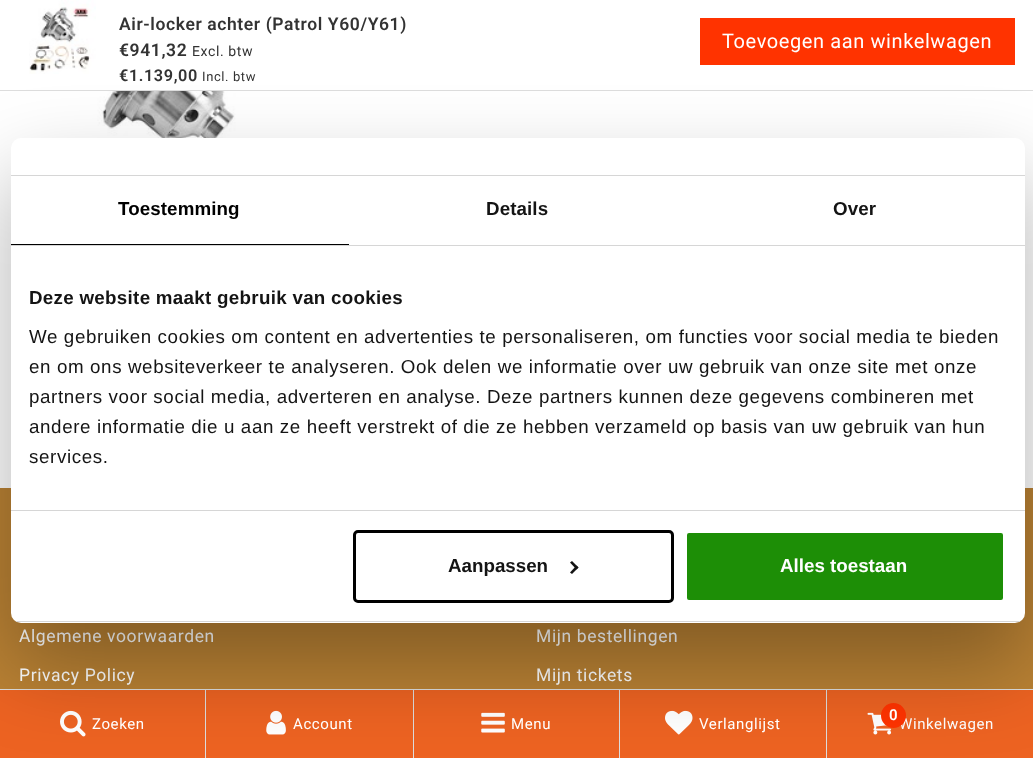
<!DOCTYPE html>
<meta charset="utf-8">
<style>body { margin: 0 } canvas { display: block }</style>
<canvas id="canvas" width="1033" height="758"></canvas>
<script type="module">
  const canvas = document.getElementById("canvas");
  const g = canvas.getContext("2d");
  g.miterLimit = 4;
  g.fontKerning = "normal";
  function drawText(s, x, y, [font, color]) {
    g.font = font;
    g.fillStyle = color;
    g.fillText(s, x, y);
  }
  function fillBox(x, y, w, h, color) {
    g.fillStyle = color;
    g.fillRect(x, y, w, h);
  }
  function fillRounded(x, y, w, h, r, color) {
    g.fillStyle = color;
    g.beginPath();
    g.roundRect(x, y, w, h, r);
    g.fill();
  }
  async function drawPicture(src, x, y, w, h) {
    const img = new Image();
    img.src = src;
    await img.decode();
    g.drawImage(img, x, y, w, h);
  }

  const s1 = ["600 17.5px Roboto", "#333333"];
  const s2 = ["14px Roboto", "#333333"];
  const s3 = ["600 16.25px Roboto", "#333333"];
  const s4 = ["13px Roboto", "#333333"];
  const s5 = ["20px Roboto", "#FFFFFF"];
  const s6 = ["17.5px Roboto", "#FFFFFF"];
  const s7 = ["15px Roboto", "#FFFFFF"];
  const s8 = ["bold 18.75px Liberation Sans", "#000000"];
  const s9 = ["bold 18.75px Liberation Sans", "#141414"];
  const s10 = ["18.75px Liberation Sans", "#141414"];
  const s11 = ["bold 18.75px Liberation Sans", "#FFFFFF"];
  const s12 = ["600 15px Roboto", "#FFFFFF"];

  fillBox(0, 0, 1033, 758, "#FFFFFF");
  fillBox(0, 90, 1033, 1, "#DDDDDD");
  await drawPicture("pic1.png", 29, 0, 67, 74);
  g.letterSpacing = "0.6px";
  drawText("Air-locker achter (Patrol Y60/Y61)", 119, 30, s1);
  drawText("€941,32", 119, 56, s1);
  drawText("Excl. btw", 192, 56, s2);
  drawText("€1.139,00", 119, 81, s3);
  drawText("Incl. btw", 202, 81, s4);
  fillBox(700, 18, 315, 47, "#FF3300");
  drawText("Toevoegen aan winkelwagen", 722, 48, s5);
  await drawPicture("pic2.png", 58, 91, 236, 47);
  fillBox(0, 488, 1033, 201, "#BA8234");
  drawText("Algemene voorwaarden", 19, 642, s6);
  drawText("Privacy Policy", 19, 681, s6);
  drawText("Mijn bestellingen", 536, 642, s6);
  drawText("Mijn tickets", 536, 681, s6);
  fillBox(0, 690, 205, 68, "#ED6322");
  fillBox(0, 689, 1033, 1, "#DDDDDD");
  fillBox(205, 689, 1, 69, "#DDDDDD");
  await drawPicture("pic3.png", 60, 710, 26, 27);
  fillBox(206, 690, 207, 68, "#ED6322");
  fillBox(413, 689, 1, 69, "#DDDDDD");
  await drawPicture("pic4.png", 266, 710, 20, 25);
  fillBox(414, 690, 205, 68, "#ED6322");
  fillBox(619, 689, 1, 69, "#DDDDDD");
  await drawPicture("pic5.png", 481, 712, 24, 21);
  fillBox(620, 690, 413, 68, "#ED6322");
  fillBox(826, 689, 1, 69, "#DDDDDD");
  await drawPicture("pic6.png", 665, 710, 28, 25);
  await drawPicture("pic7.png", 867, 712, 25, 23);
  drawText("Winkelwagen", 899, 729, s7);
  g.fillStyle = "#FF3300";
  g.beginPath();
  g.arc(893.5, 715.5, 12.5, 0, Math.PI * 2);
  g.fill();
  g.fillStyle = "rgba(0, 0, 0, 0.3)";
  g.filter = "blur(42.5px)";
  g.beginPath();
  g.roundRect(11, 178, 1014, 485, 10);
  g.fill();
  g.filter = "none";
  fillRounded(11, 138, 1014, 485, 10, "#FFFFFF");
  fillBox(11, 175, 1014, 1, "#D6D6D6");
  fillBox(11, 245, 1014, 1, "#D6D6D6");
  fillBox(11, 244, 338, 1, "#000000");
  g.letterSpacing = "0.1px";
  drawText("Toestemming", 118, 215, s8);
  drawText("Details", 486, 215, s9);
  drawText("Over", 833, 215, s9);
  fillBox(11, 510, 1014, 1, "#D6D6D6");
  g.letterSpacing = "0.3px";
  drawText("Deze website maakt gebruik van cookies", 29, 304, s9);
  g.letterSpacing = "0.62px";
  drawText("We gebruiken cookies om content en advertenties te personaliseren, om functies voor social media te bieden", 29, 343, s10);
  drawText("en om ons websiteverkeer te analyseren. Ook delen we informatie over uw gebruik van onze site met onze", 29, 373, s10);
  drawText("partners voor social media, adverteren en analyse. Deze partners kunnen deze gegevens combineren met", 29, 403, s10);
  drawText("andere informatie die u aan ze heeft verstrekt of die ze hebben verzameld op basis van uw gebruik van hun", 29, 433, s10);
  drawText("services.", 29, 463, s10);
  g.save();
  g.beginPath();
  g.roundRect(11, 138, 1014, 485, 10);
  g.clip();
  fillBox(11, 621, 1014, 1, "#D6D6D6");
  g.restore();
  g.beginPath();
  g.roundRect(354.5, 531.5, 318, 70, 3.5);
  g.strokeStyle = "#000000";
  g.lineWidth = 3;
  g.stroke();
  g.letterSpacing = "0px";
  drawText("Aanpassen", 448, 572, s9);
  g.beginPath();
  g.moveTo(572, 561);
  g.lineTo(578.5, 567.5);
  g.lineTo(576.5, 569.5);
  g.lineTo(570, 562.5);
  g.closePath();
  g.fill();
  g.beginPath();
  g.moveTo(576.5, 565.5);
  g.lineTo(578.5, 567.5);
  g.lineTo(572, 574);
  g.lineTo(570, 572.5);
  g.closePath();
  g.fill();
  g.fillStyle = "#1D8E06";
  g.beginPath();
  g.roundRect(685.5, 531.5, 319, 70, 3.5);
  g.fill();
  g.strokeStyle = "#FFFFFF";
  g.stroke();
  drawText("Alles toestaan", 780, 572, s11);
  g.letterSpacing = "0.6px";
  drawText("Zoeken", 92, 729, s7);
  drawText("Account", 293, 729, s7);
  drawText("Menu", 511, 729, s7);
  drawText("Verlanglijst", 699, 729, s7);
  drawText("0", 889, 720, s12);
</script>
